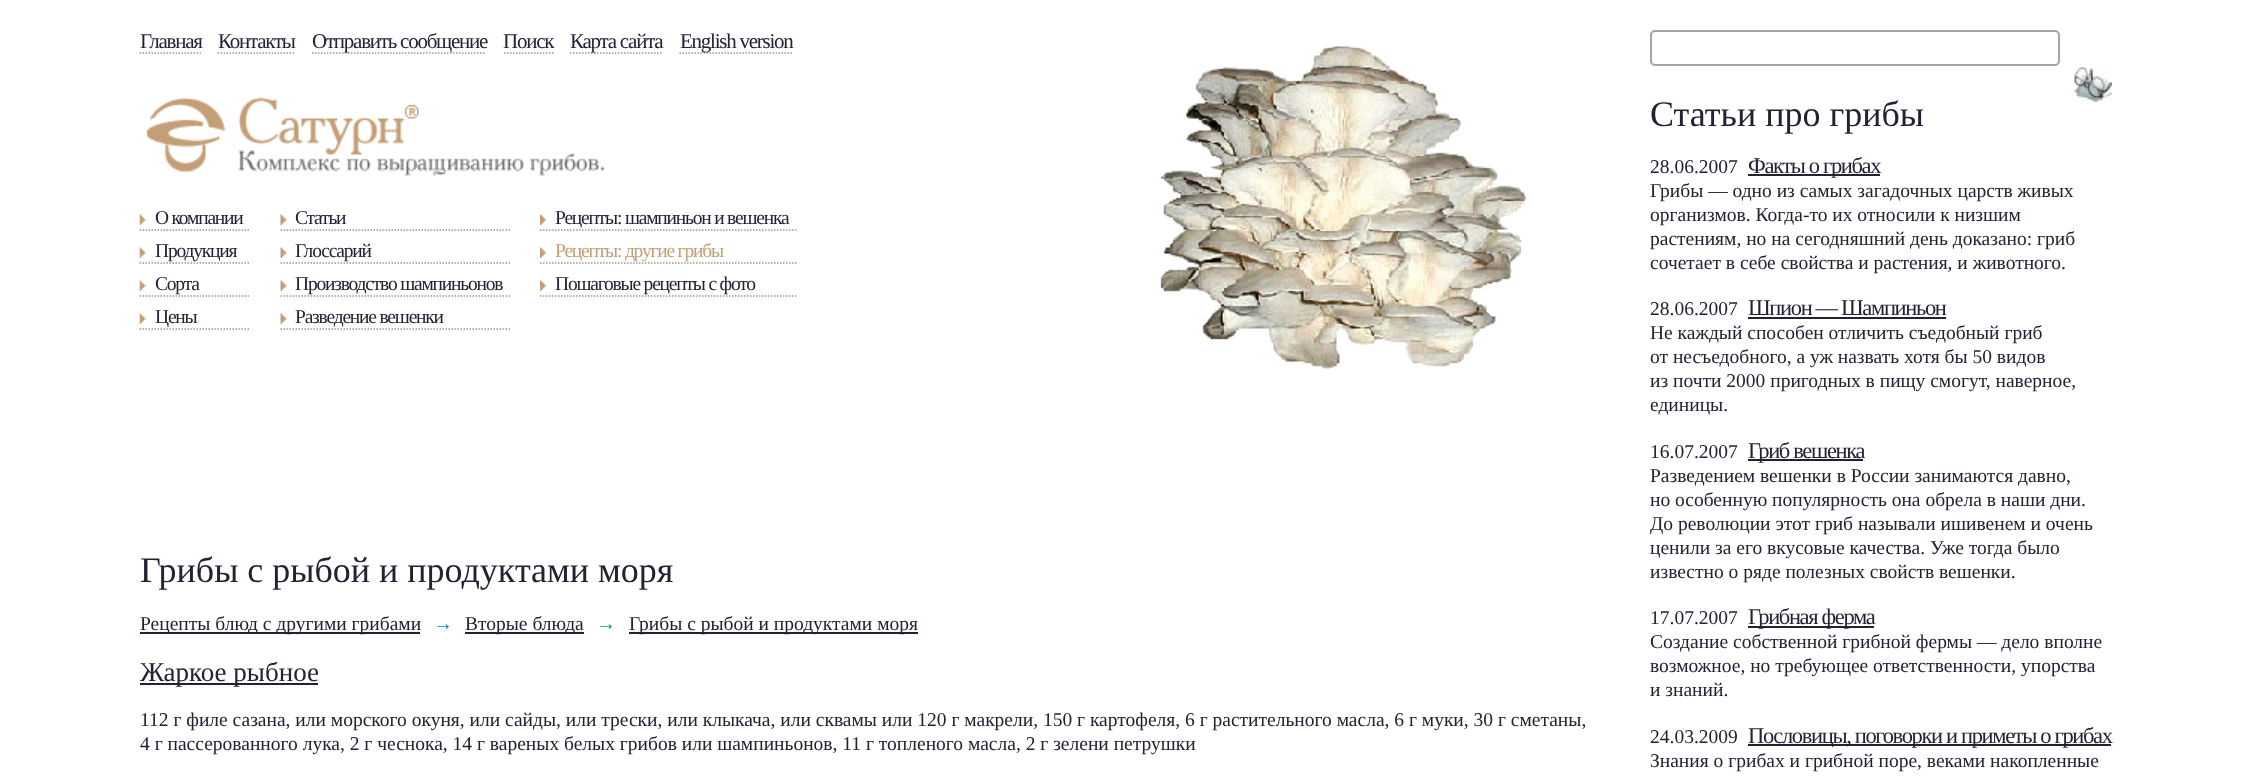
<!DOCTYPE html>
<meta charset="utf-8">
<style>body { margin: 0 } canvas { display: block }</style>
<canvas id="canvas" width="2258" height="781"></canvas>
<script type="module">
  const canvas = document.getElementById("canvas");
  const g = canvas.getContext("2d");
  g.miterLimit = 4;
  g.fontKerning = "normal";
  function drawText(s, x, y, [font, color]) {
    g.font = font;
    g.fillStyle = color;
    g.fillText(s, x, y);
  }
  function fillBox(x, y, w, h, color) {
    g.fillStyle = color;
    g.fillRect(x, y, w, h);
  }
  async function drawPicture(src, x, y, w, h) {
    const img = new Image();
    img.src = src;
    await img.decode();
    g.drawImage(img, x, y, w, h);
  }

  const s1 = ["21px Liberation Serif", "#222233"];
  const s2 = ["19.5px Liberation Serif", "#222233"];
  const s3 = ["19.5px Liberation Serif", "#C49E76"];
  const s4 = ["36px Liberation Serif", "#222233"];
  const s5 = ["20px Liberation Serif", "#0096AA"];
  const s6 = ["27px Liberation Serif", "#222233"];
  const s7 = ["22.5px Liberation Serif", "#222233"];

  fillBox(0, 0, 2258, 781, "#FFFFFF");
  g.letterSpacing = "-1.25px";
  drawText("Главная", 140, 48, s1);
  g.beginPath();
  g.moveTo(139.5, 53);
  g.lineTo(201, 53);
  g.strokeStyle = "#999999";
  g.lineWidth = 1.5;
  g.setLineDash([1.5, 1.5]);
  g.stroke();
  drawText("Контакты", 218, 48, s1);
  g.beginPath();
  g.moveTo(217.5, 53);
  g.lineTo(294, 53);
  g.stroke();
  g.beginPath();
  g.moveTo(312, 53);
  g.lineTo(486, 53);
  g.stroke();
  drawText("Отправить сообщение", 312, 48, s1);
  drawText("Поиск", 503, 48, s1);
  g.beginPath();
  g.moveTo(504, 53);
  g.lineTo(553.5, 53);
  g.stroke();
  g.beginPath();
  g.moveTo(570, 53);
  g.lineTo(663, 53);
  g.stroke();
  drawText("Карта сайта", 570, 48, s1);
  g.beginPath();
  g.moveTo(679.5, 53);
  g.lineTo(792, 53);
  g.stroke();
  drawText("English version", 680, 48, s1);
  await drawPicture("pic1.png", 146, 97, 459, 79);
  await drawPicture("pic2.png", 1160, 46, 368, 324);
  await drawPicture("pic3.png", 139, 214, 7, 11);
  g.beginPath();
  g.moveTo(139.5, 230);
  g.lineTo(250.5, 230);
  g.stroke();
  g.letterSpacing = "-1.2px";
  drawText("О компании", 155, 224, s2);
  await drawPicture("pic3.png", 139, 247, 7, 11);
  g.beginPath();
  g.moveTo(139.5, 263);
  g.lineTo(250.5, 263);
  g.stroke();
  drawText("Продукция", 155, 257, s2);
  await drawPicture("pic3.png", 139, 280, 7, 11);
  g.beginPath();
  g.moveTo(139.5, 296);
  g.lineTo(250.5, 296);
  g.stroke();
  drawText("Сорта", 155, 290, s2);
  await drawPicture("pic3.png", 139, 313, 7, 11);
  g.beginPath();
  g.moveTo(139.5, 329);
  g.lineTo(250.5, 329);
  g.stroke();
  drawText("Цены", 155, 323, s2);
  await drawPicture("pic4.png", 280, 214, 7, 11);
  g.beginPath();
  g.moveTo(280.5, 230);
  g.lineTo(510, 230);
  g.stroke();
  drawText("Статьи", 295, 224, s2);
  await drawPicture("pic4.png", 280, 247, 7, 11);
  g.beginPath();
  g.moveTo(280.5, 263);
  g.lineTo(510, 263);
  g.stroke();
  drawText("Глоссарий", 295, 257, s2);
  await drawPicture("pic4.png", 280, 280, 7, 11);
  g.beginPath();
  g.moveTo(280.5, 296);
  g.lineTo(510, 296);
  g.stroke();
  drawText("Производство шампиньонов", 295, 290, s2);
  await drawPicture("pic4.png", 280, 313, 7, 11);
  g.beginPath();
  g.moveTo(280.5, 329);
  g.lineTo(510, 329);
  g.stroke();
  drawText("Разведение вешенки", 295, 323, s2);
  await drawPicture("pic5.png", 540, 214, 6, 11);
  g.beginPath();
  g.moveTo(540, 230);
  g.lineTo(796.5, 230);
  g.stroke();
  drawText("Рецепты: шампиньон и вешенка", 555, 224, s2);
  await drawPicture("pic5.png", 540, 247, 6, 11);
  g.beginPath();
  g.moveTo(540, 263);
  g.lineTo(796.5, 263);
  g.stroke();
  drawText("Рецепты: другие грибы", 555, 257, s3);
  await drawPicture("pic5.png", 540, 280, 6, 11);
  g.beginPath();
  g.moveTo(540, 296);
  g.lineTo(796.5, 296);
  g.stroke();
  drawText("Пошаговые рецепты с фото", 555, 290, s2);
  g.letterSpacing = "0px";
  drawText("Грибы с рыбой и продуктами моря", 140, 582, s4);
  fillBox(140, 632, 280, 2, "#222233");
  drawText("Рецепты блюд с другими грибами", 140, 630, s2);
  drawText("→", 433, 630, s5);
  fillBox(465, 632, 119, 2, "#222233");
  drawText("Вторые блюда", 465, 630, s2);
  drawText("→", 596, 630, s5);
  fillBox(629, 632, 289, 2, "#222233");
  drawText("Грибы с рыбой и продуктами моря", 629, 630, s2);
  fillBox(140, 683, 178, 2, "#222233");
  drawText("Жаркое рыбное", 140, 681, s6);
  drawText("112 г филе сазана, или морского окуня, или сайды, или трески, или клыкача, или сквамы или 120 г макрели, 150 г картофеля, 6 г растительного масла, 6 г муки, 30 г сметаны,", 140, 726, s2);
  drawText("4 г пассерованного лука, 2 г чеснока, 14 г вареных белых грибов или шампиньонов, 11 г топленого масла, 2 г зелени петрушки", 140, 750, s2);
  g.beginPath();
  g.roundRect(1651, 31, 408, 34, 4);
  g.strokeStyle = "#A5A5A5";
  g.lineWidth = 2;
  g.setLineDash([]);
  g.stroke();
  await drawPicture("pic6.png", 2074, 67, 38, 35);
  drawText("Статьи про грибы", 1650, 126, s4);
  drawText("28.06.2007", 1650, 173, s2);
  fillBox(1748, 174, 132, 2, "#222233");
  g.letterSpacing = "-1.35px";
  drawText("Факты о грибах", 1748, 173, s7);
  g.letterSpacing = "0px";
  drawText("Грибы — одно из самых загадочных царств живых", 1650, 197, s2);
  drawText("организмов. Когда-то их относили к низшим", 1650, 221, s2);
  drawText("растениям, но на сегодняшний день доказано: гриб", 1650, 245, s2);
  drawText("сочетает в себе свойства и растения, и животного.", 1650, 269, s2);
  drawText("28.06.2007", 1650, 315, s2);
  g.letterSpacing = "-1.35px";
  drawText("Шпион — Шампиньон", 1748, 315, s7);
  fillBox(1748, 317, 198, 2, "#222233");
  g.letterSpacing = "0px";
  drawText("Не каждый способен отличить съедобный гриб", 1650, 339, s2);
  drawText("от несъедобного, а уж назвать хотя бы 50 видов", 1650, 363, s2);
  drawText("из почти 2000 пригодных в пищу смогут, наверное,", 1650, 387, s2);
  drawText("единицы.", 1650, 411, s2);
  drawText("16.07.2007", 1650, 458, s2);
  fillBox(1748, 459, 115, 2, "#222233");
  g.letterSpacing = "-1.35px";
  drawText("Гриб вешенка", 1748, 458, s7);
  g.letterSpacing = "0px";
  drawText("Разведением вешенки в России занимаются давно,", 1650, 482, s2);
  drawText("но особенную популярность она обрела в наши дни.", 1650, 506, s2);
  drawText("До революции этот гриб называли ишивенем и очень", 1650, 530, s2);
  drawText("ценили за его вкусовые качества. Уже тогда было", 1650, 554, s2);
  drawText("известно о ряде полезных свойств вешенки.", 1650, 578, s2);
  drawText("17.07.2007", 1650, 624, s2);
  fillBox(1748, 626, 126, 2, "#222233");
  g.letterSpacing = "-1.35px";
  drawText("Грибная ферма", 1748, 624, s7);
  g.letterSpacing = "0px";
  drawText("Создание собственной грибной фермы — дело вполне", 1650, 648, s2);
  drawText("возможное, но требующее ответственности, упорства", 1650, 672, s2);
  drawText("и знаний.", 1650, 696, s2);
  drawText("24.03.2009", 1650, 743, s2);
  fillBox(1748, 744, 363, 2, "#222233");
  g.letterSpacing = "-1.35px";
  drawText("Пословицы, поговорки и приметы о грибах", 1748, 743, s7);
  g.letterSpacing = "0px";
  drawText("Знания о грибах и грибной поре, веками накопленные", 1650, 767, s2);
</script>
